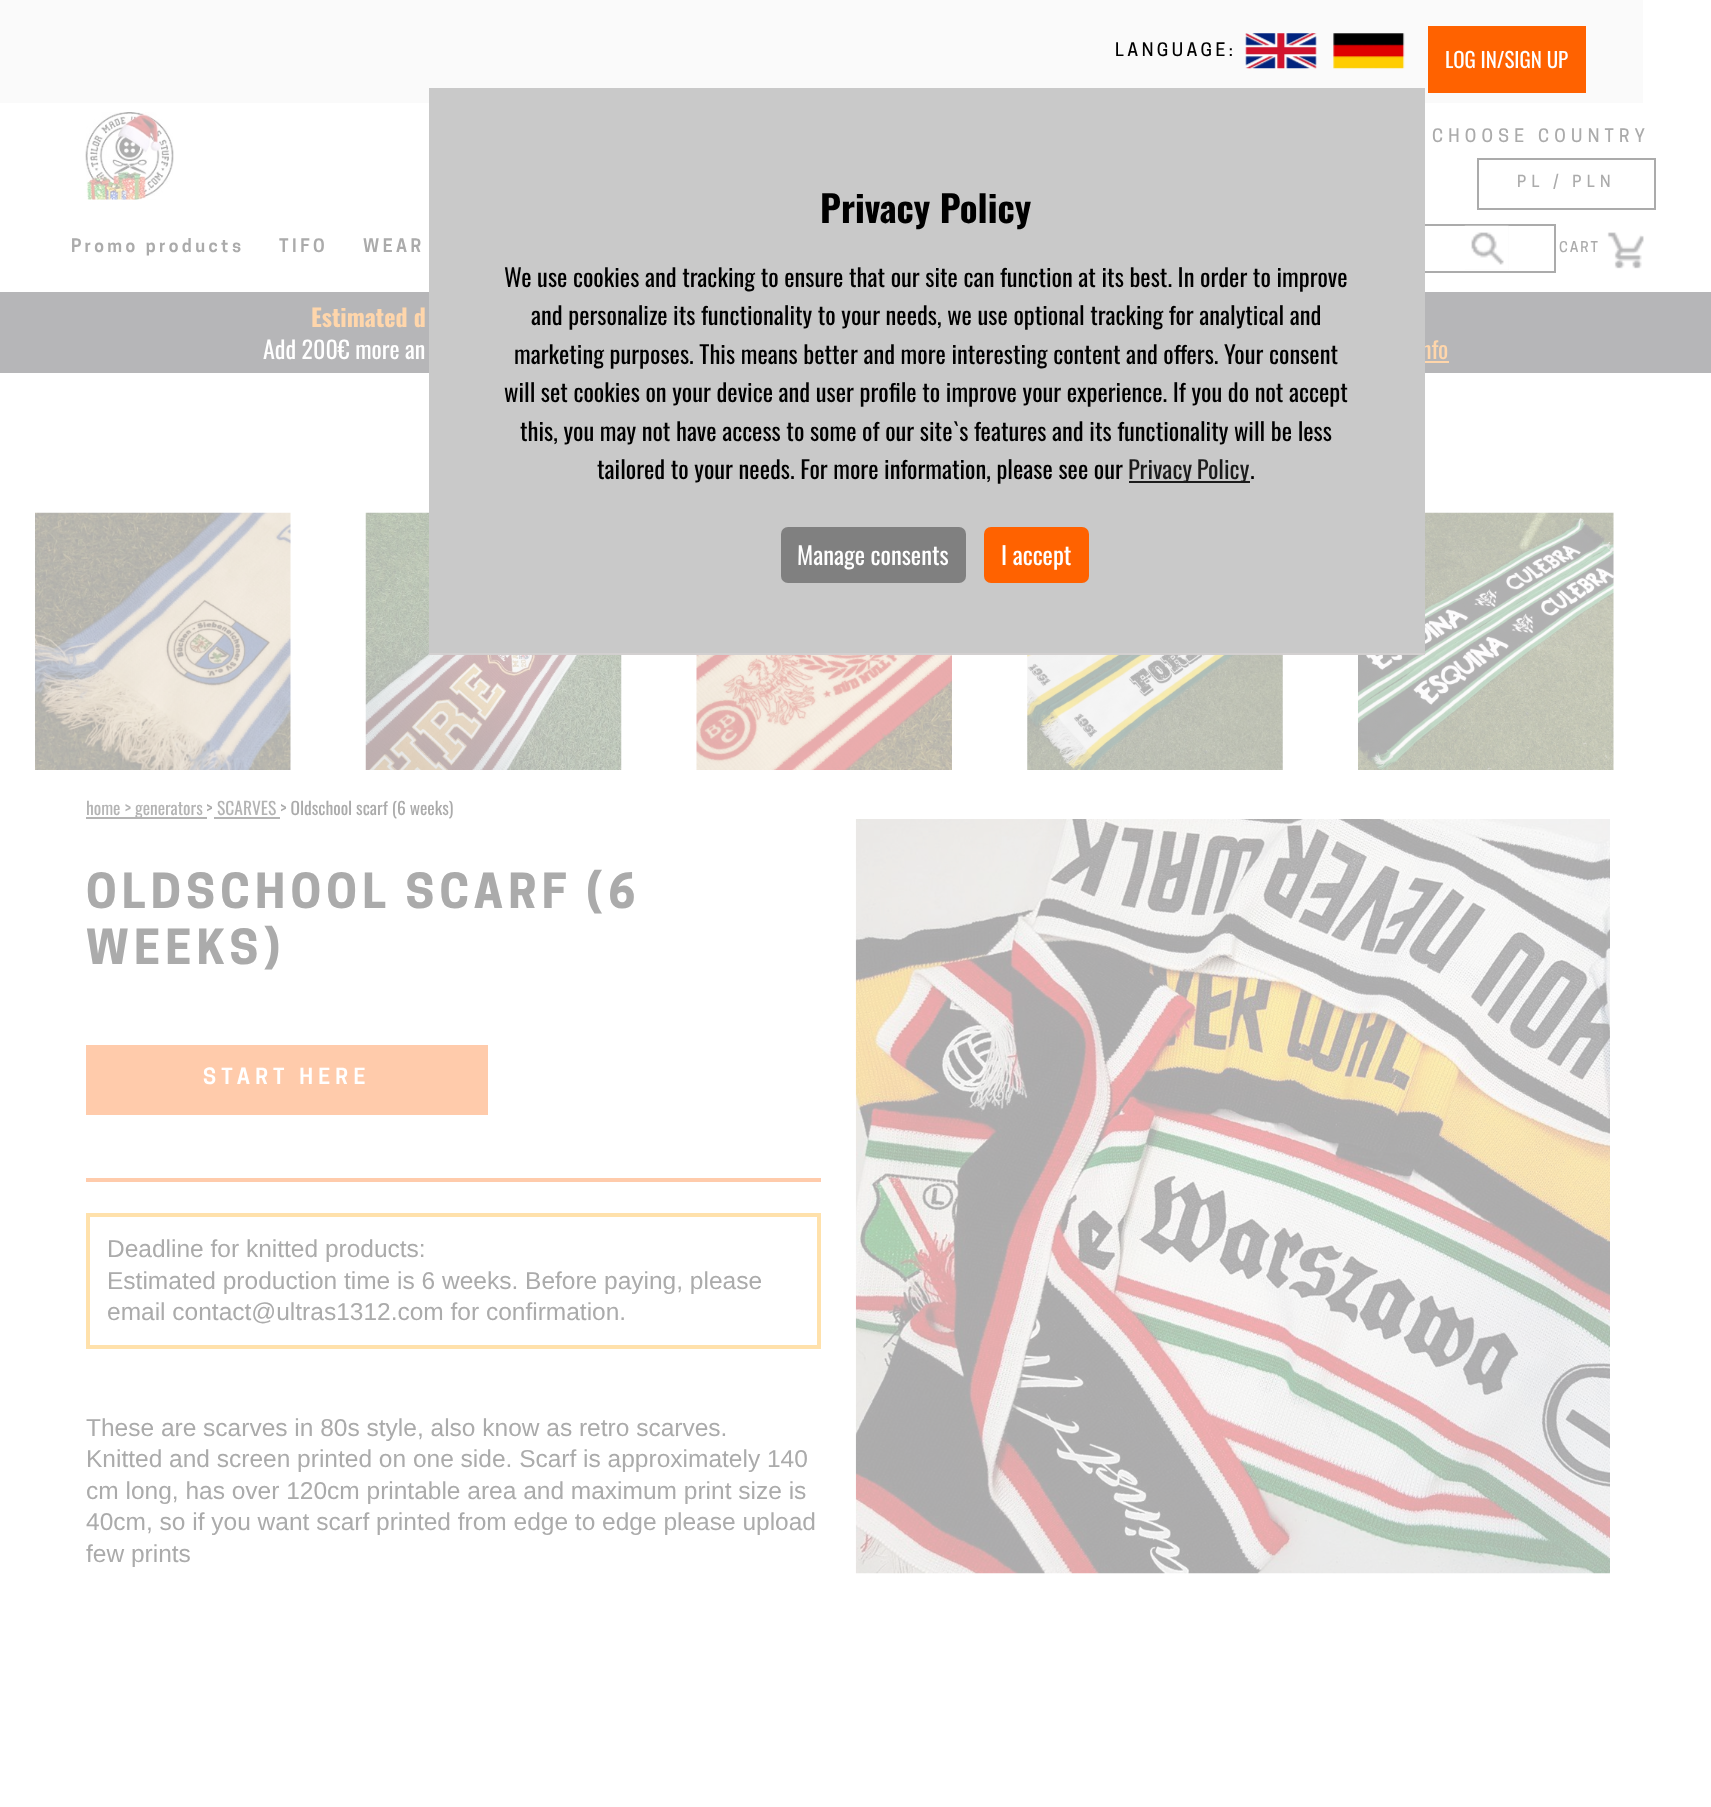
<!DOCTYPE html>
<meta charset="utf-8">
<style>body { margin: 0 } canvas { display: block }</style>
<canvas id="canvas" width="1711" height="1807"></canvas>
<script type="module">
  const canvas = document.getElementById("canvas");
  const g = canvas.getContext("2d");
  g.miterLimit = 4;
  g.fontKerning = "normal";
  function drawText(s, x, y, [font, color]) {
    g.font = font;
    g.fillStyle = color;
    g.fillText(s, x, y);
  }
  function fillBox(x, y, w, h, color) {
    g.fillStyle = color;
    g.fillRect(x, y, w, h);
  }
  function fillRounded(x, y, w, h, r, color) {
    g.fillStyle = color;
    g.beginPath();
    g.roundRect(x, y, w, h, r);
    g.fill();
  }
  async function drawPicture(src, x, y, w, h) {
    const img = new Image();
    img.src = src;
    await img.decode();
    g.drawImage(img, x, y, w, h);
  }

  const s1 = ["500 17.5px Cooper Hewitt", "#000000"];
  const s2 = ["21px Oswald", "#FFFFFF"];
  const s3 = ["500 17.5px Cooper Hewitt", "#ABABAB"];
  const s4 = ["500 15.75px Cooper Hewitt", "#ABABAB"];
  const s5 = ["24px Oswald", "#FFD6AB"];
  const s6 = ["bold 36.75px Oswald", "#000000"];
  const s7 = ["24.5px Oswald", "#000000"];
  const s8 = ["24.5px Oswald", "#1C1C1C"];
  const s9 = ["24.5px Oswald", "#FFFFFF"];
  const s10 = ["600 17.5px Cooper Hewitt", "#ABABAB"];
  const s11 = ["500 14px Cooper Hewitt", "#ABABAB"];
  const s12 = ["bold 24px Oswald", "#FFD6AB"];
  const s13 = ["24px Oswald", "#FFFFFF"];
  const s14 = ["17.5px Oswald", "#B4B4B4"];
  const s15 = ["17.5px Oswald", "#ABABAB"];
  const s16 = ["bold 45.5px Cooper Hewitt", "#ABABAB"];
  const s17 = ["600 21px Cooper Hewitt", "#FFFFFF"];
  const s18 = ["24.5px Liberation Sans", "#ABABAB"];

  fillBox(0, 0, 1711, 1807, "#FFFFFF");
  fillBox(0, 0, 1643, 103, "#FAFAFA");
  g.letterSpacing = "3.5px";
  drawText("LANGUAGE:", 1115, 56, s1);
  await drawPicture("pic1.png", 1245, 33, 72, 36);
  await drawPicture("pic2.png", 1333, 33, 72, 36);
  fillBox(1428, 26, 158, 67, "#FF6200");
  g.letterSpacing = "0px";
  drawText("LOG IN/SIGN UP", 1445, 68, s2);
  await drawPicture("pic3.png", 85, 112, 89, 88);
  g.letterSpacing = "5.25px";
  drawText("CHOOSE COUNTRY", 1432, 142, s3);
  g.strokeStyle = "#ABABAB";
  g.lineWidth = 2;
  g.strokeRect(1478, 159, 177, 50);
  drawText("PL / PLN", 1517, 187, s4);
  g.strokeRect(1231, 225, 324, 47);
  fillBox(0, 292, 1711, 81, "#B6B6B8");
  g.letterSpacing = "0px";
  drawText("nfo", 1421, 359, s5);
  await drawPicture("pic7.png", 365, 512, 257, 258);
  await drawPicture("pic10.png", 1358, 512, 256, 258);
  fillBox(429, 88, 996, 565, "#C9C9C9");
  fillBox(429, 653, 996, 2, "#D3D0D0");
  drawText("Privacy Policy", 820, 223, s6);
  drawText("We use cookies and tracking to ensure that our site can function at its best. In order to improve", 504, 287, s7);
  drawText("and personalize its functionality to your needs, we use optional tracking for analytical and", 531, 325, s7);
  drawText("marketing purposes. This means better and more interesting content and offers. Your consent", 514, 364, s7);
  drawText("will set cookies on your device and user profile to improve your experience. If you do not accept", 504, 402, s7);
  drawText("this, you may not have access to some of our site`s features and its functionality will be less", 520, 441, s7);
  drawText("tailored to your needs. For more information, please see our", 597, 479, s7);
  fillBox(1129, 481, 121, 2, "#1C1C1C");
  g.wordSpacing = "-1px";
  drawText("Privacy Policy", 1128, 479, s8);
  g.wordSpacing = "0px";
  drawText(".", 1250, 479, s7);
  fillRounded(781, 527, 185, 56, 7, "#808080");
  drawText("Manage consents", 797, 565, s9);
  fillRounded(984, 527, 105, 56, 7, "#FF6200");
  drawText("I accept", 1001, 565, s9);
  g.letterSpacing = "3.5px";
  drawText("Promo products", 71, 252, s10);
  drawText("TIFO", 279, 252, s10);
  drawText("WEAR", 363, 252, s10);
  fillBox(1465, 226, 44, 44, "#FAFAFA");
  await drawPicture("pic4.png", 1464, 225, 45, 45);
  g.letterSpacing = "2px";
  drawText("CART", 1559, 252, s11);
  await drawPicture("pic5.png", 1607, 232, 37, 37);
  g.letterSpacing = "0px";
  drawText("Estimated d", 311, 327, s12);
  drawText("Add 200€ more an", 263, 359, s13);
  fillBox(1425, 361, 24, 2, "#FFD6AB");
  await drawPicture("pic6.png", 35, 512, 256, 258);
  await drawPicture("pic8.png", 696, 655, 256, 115);
  await drawPicture("pic9.png", 1027, 655, 256, 115);
  fillBox(86, 817, 121, 2, "#B4B4B4");
  drawText("home > generators", 86, 815, s14);
  drawText(">", 206, 815, s15);
  drawText("SCARVES", 217, 815, s14);
  fillBox(214, 817, 66, 2, "#B4B4B4");
  drawText("> Oldschool scarf (6 weeks)", 280, 815, s15);
  g.letterSpacing = "5.25px";
  drawText("OLDSCHOOL SCARF (6", 86, 908, s16);
  drawText("WEEKS)", 86, 964, s16);
  fillBox(86, 1045, 402, 70, "#FFCBAB");
  drawText("START HERE", 203, 1084, s17);
  fillBox(86, 1178, 735, 4, "#FFCBAB");
  g.strokeStyle = "#FFE1AB";
  g.lineWidth = 4;
  g.strokeRect(88, 1215, 731, 132);
  g.letterSpacing = "0px";
  drawText("Deadline for knitted products:", 107, 1257, s18);
  drawText("Estimated production time is 6 weeks. Before paying, please", 107, 1289, s18);
  drawText("email contact@ultras1312.com for confirmation.", 107, 1320, s18);
  drawText("These are scarves in 80s style, also know as retro scarves.", 86, 1436, s18);
  drawText("Knitted and screen printed on one side. Scarf is approximately 140", 86, 1467, s18);
  drawText("cm long, has over 120cm printable area and maximum print size is", 86, 1499, s18);
  drawText("40cm, so if you want scarf printed from edge to edge please upload", 86, 1530, s18);
  drawText("few prints", 86, 1562, s18);
  await drawPicture("pic11.png", 855, 819, 755, 755);
</script>
